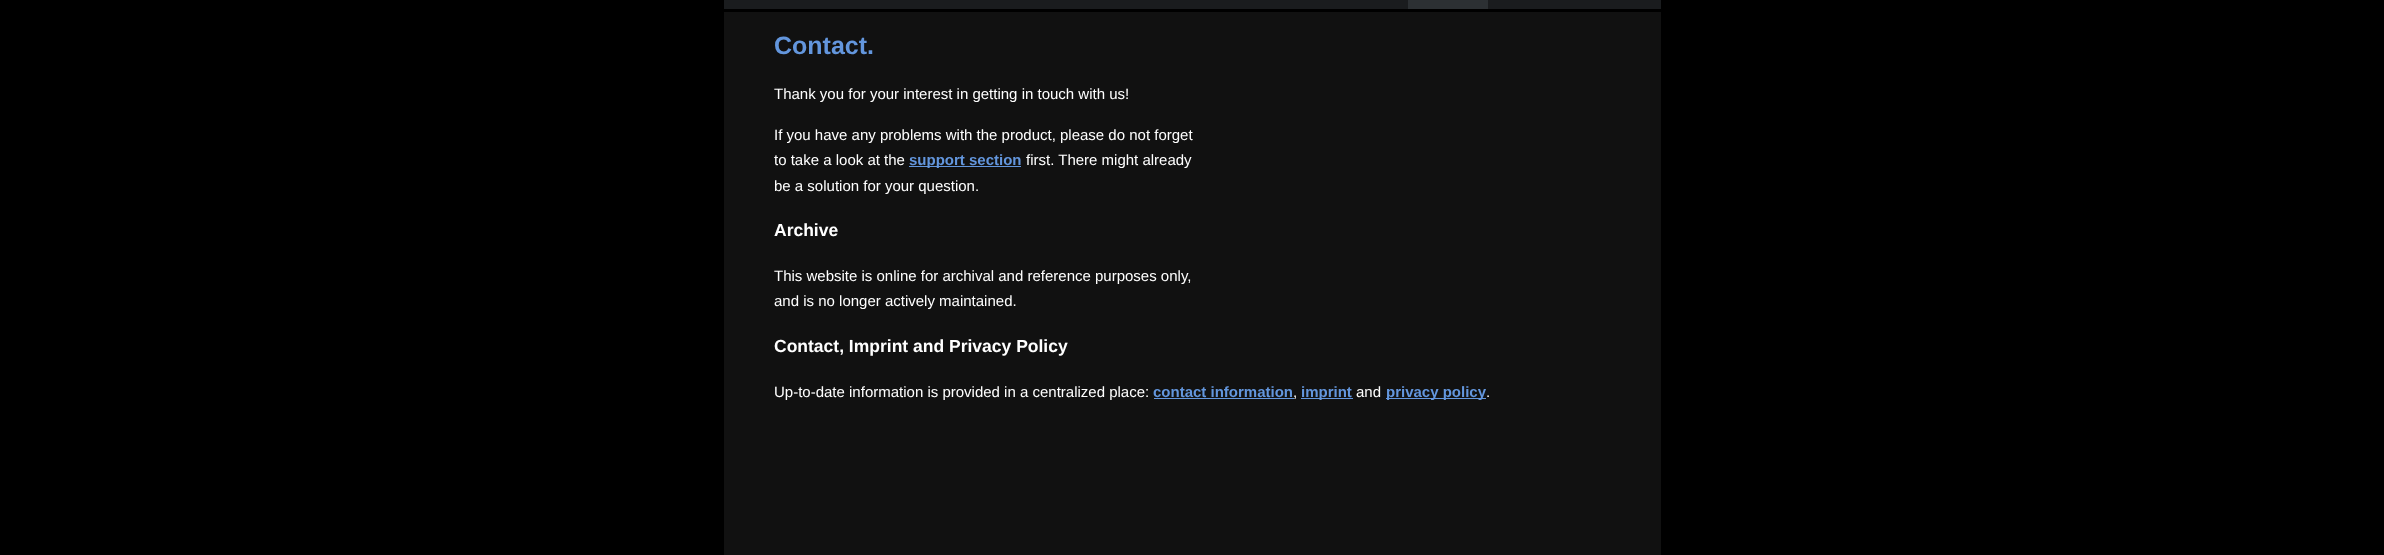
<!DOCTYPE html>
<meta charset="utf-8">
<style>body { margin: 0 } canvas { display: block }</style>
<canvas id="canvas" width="2384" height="555"></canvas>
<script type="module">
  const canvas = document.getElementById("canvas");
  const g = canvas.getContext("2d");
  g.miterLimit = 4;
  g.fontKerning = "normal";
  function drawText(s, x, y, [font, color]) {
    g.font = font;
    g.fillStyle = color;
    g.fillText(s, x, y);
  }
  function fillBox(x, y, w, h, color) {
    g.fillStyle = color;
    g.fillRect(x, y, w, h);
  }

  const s1 = ["bold 25px Liberation Sans", "#6396DD"];
  const s2 = ["15px Liberation Sans", "#FFFFFF"];
  const s3 = ["bold 15px Liberation Sans", "#6396DD"];
  const s4 = ["bold 17.5px Liberation Sans", "#FFFFFF"];

  fillBox(0, 0, 2384, 555, "#000000");
  fillBox(724, 12, 937, 543, "#111111");
  fillBox(724, 0, 937, 9, "#1A1C1E");
  fillBox(1408, 0, 80, 9, "#2C3033");
  drawText("Contact.", 774, 54, s1);
  drawText("Thank you for your interest in getting in touch with us!", 774, 99, s2);
  drawText("If you have any problems with the product, please do not forget", 774, 140, s2);
  drawText("to take a look at the", 774, 165, s2);
  fillBox(909, 166, 112, 1, "#6396DD");
  drawText("support section", 909, 165, s3);
  drawText("first. There might already", 1026, 165, s2);
  drawText("be a solution for your question.", 774, 191, s2);
  drawText("Archive", 774, 236, s4);
  drawText("This website is online for archival and reference purposes only,", 774, 281, s2);
  drawText("and is no longer actively maintained.", 774, 306, s2);
  drawText("Contact, Imprint and Privacy Policy", 774, 352, s4);
  drawText("Up-to-date information is provided in a centralized place:", 774, 397, s2);
  drawText("contact information", 1153, 397, s3);
  fillBox(1154, 398, 140, 1, "#6396DD");
  drawText(",", 1293, 397, s2);
  fillBox(1301, 398, 52, 1, "#6396DD");
  drawText("imprint", 1301, 397, s3);
  drawText("and", 1356, 397, s2);
  fillBox(1386, 398, 100, 1, "#6396DD");
  drawText("privacy policy", 1386, 397, s3);
  drawText(".", 1486, 397, s2);
</script>
